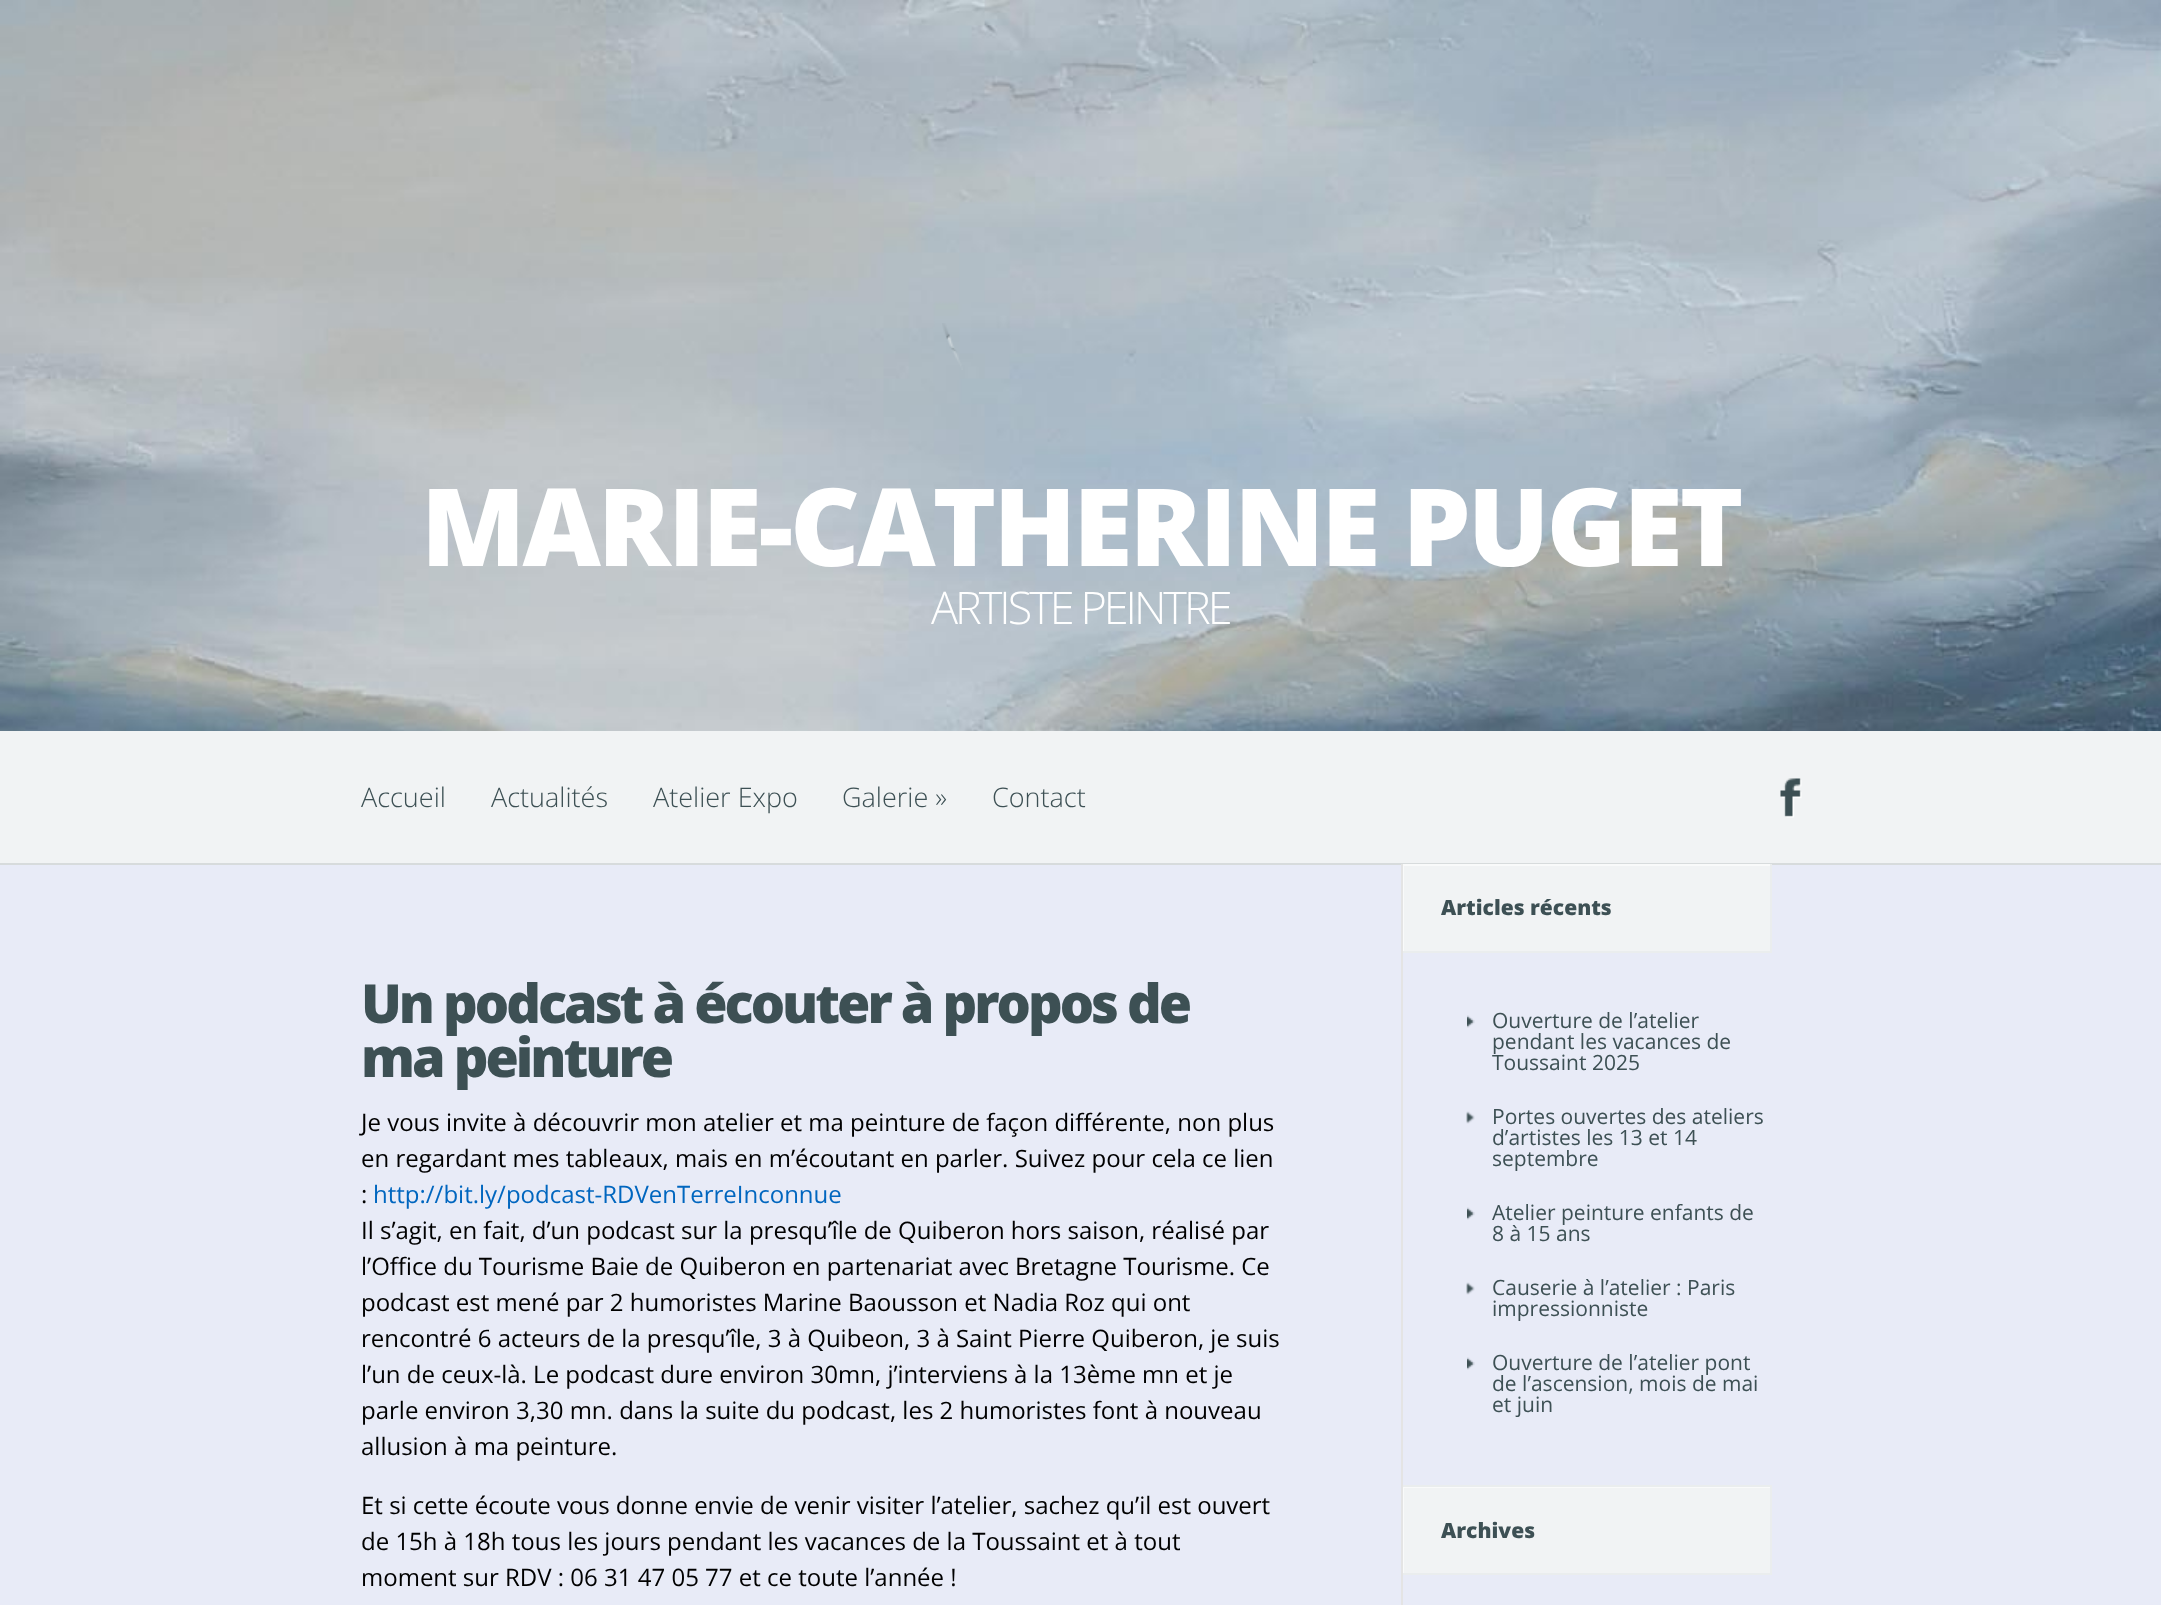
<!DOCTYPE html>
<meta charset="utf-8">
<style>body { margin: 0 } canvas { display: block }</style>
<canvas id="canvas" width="2161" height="1605"></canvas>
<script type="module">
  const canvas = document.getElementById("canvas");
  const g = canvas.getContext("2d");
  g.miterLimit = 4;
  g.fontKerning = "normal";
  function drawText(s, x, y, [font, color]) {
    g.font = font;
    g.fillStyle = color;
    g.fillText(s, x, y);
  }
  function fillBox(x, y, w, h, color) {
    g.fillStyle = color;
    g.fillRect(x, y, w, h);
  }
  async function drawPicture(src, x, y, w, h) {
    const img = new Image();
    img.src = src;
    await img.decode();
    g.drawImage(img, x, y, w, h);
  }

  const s1 = ["800 108px Open Sans", "#FFFFFF"];
  const s2 = ["300 45px Open Sans", "#FFFFFF"];
  const s3 = ["300 27px Open Sans", "#3D5054"];
  const s4 = ["800 54px Open Sans", "#3D5054"];
  const s5 = ["24px Open Sans", "#000000"];
  const s6 = ["24px Open Sans", "#0066BF"];
  const s7 = ["800 21px Open Sans", "#3D5054"];
  const s8 = ["21px Open Sans", "#3D5054"];

  fillBox(0, 0, 2161, 1605, "#E8EBF7");
  await drawPicture("pic1.png", 0, 0, 2161, 731);
  await drawPicture("pic2.png", 942, 323, 21, 47);
  g.letterSpacing = "-3px";
  drawText("MARIE-CATHERINE PUGET", 421, 566, s1);
  drawText("ARTISTE PEINTRE", 931, 624, s2);
  fillBox(0, 731, 2161, 132, "#F1F3F4");
  fillBox(0, 863, 2161, 2, "#D7DBDC");
  g.letterSpacing = "0px";
  drawText("Accueil", 361, 807, s3);
  drawText("Actualités", 491, 807, s3);
  drawText("Atelier Expo", 653, 807, s3);
  drawText("Galerie »", 842, 807, s3);
  drawText("Contact", 992, 807, s3);
  await drawPicture("pic3.png", 1780, 778, 22, 40);
  g.letterSpacing = "-3px";
  drawText("Un podcast à écouter à propos de", 361, 1023, s4);
  drawText("ma peinture", 361, 1077, s4);
  g.letterSpacing = "0px";
  drawText("Je vous invite à découvrir mon atelier et ma peinture de façon différente, non plus", 361, 1131, s5);
  drawText("en regardant mes tableaux, mais en m’écoutant en parler. Suivez pour cela ce lien", 361, 1167, s5);
  drawText(":", 361, 1203, s5);
  drawText("http://bit.ly/podcast-RDVenTerreInconnue", 373, 1203, s6);
  drawText("Il s’agit, en fait, d’un podcast sur la presqu’île de Quiberon hors saison, réalisé par", 361, 1239, s5);
  drawText("l’Office du Tourisme Baie de Quiberon en partenariat avec Bretagne Tourisme. Ce", 361, 1275, s5);
  drawText("podcast est mené par 2 humoristes Marine Baousson et Nadia Roz qui ont", 361, 1311, s5);
  drawText("rencontré 6 acteurs de la presqu’île, 3 à Quibeon, 3 à Saint Pierre Quiberon, je suis", 361, 1347, s5);
  drawText("l’un de ceux-là. Le podcast dure environ 30mn, j’interviens à la 13ème mn et je", 361, 1383, s5);
  drawText("parle environ 3,30 mn. dans la suite du podcast, les 2 humoristes font à nouveau", 361, 1419, s5);
  drawText("allusion à ma peinture.", 361, 1455, s5);
  drawText("Et si cette écoute vous donne envie de venir visiter l’atelier, sachez qu’il est ouvert", 361, 1514, s5);
  drawText("de 15h à 18h tous les jours pendant les vacances de la Toussaint et à tout", 361, 1550, s5);
  drawText("moment sur RDV : 06 31 47 05 77 et ce toute l’année !", 361, 1586, s5);
  fillBox(1770, 864, 2, 89, "#EAEDEE");
  fillBox(1401, 951, 371, 2, "#EAEDEE");
  fillBox(1404, 1488, 366, 85, "#F1F3F4");
  g.save();
  g.beginPath();
  g.rect(1403, 1487, 367, 87);
  g.clip();
  g.fillStyle = "#F9FAFA";
  g.beginPath();
  g.moveTo(1254, 1338);
  g.lineTo(1918, 1338);
  g.lineTo(1918, 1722);
  g.lineTo(1254, 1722);
  g.closePath();
  g.moveTo(1404, 1488);
  g.lineTo(1772, 1488);
  g.lineTo(1772, 1575);
  g.lineTo(1404, 1575);
  g.closePath();
  g.fill("evenodd");
  g.restore();
  g.strokeStyle = "#EAEDEE";
  g.lineWidth = 2;
  g.strokeRect(1402, 1486, 369, 88);
  fillBox(1401, 864, 2, 741, "#E4E4E4");
  fillBox(1404, 866, 366, 85, "#F1F3F4");
  g.save();
  g.beginPath();
  g.rect(1403, 864, 367, 87);
  g.clip();
  g.fillStyle = "#F9FAFA";
  g.beginPath();
  g.moveTo(1254, 716);
  g.lineTo(1918, 716);
  g.lineTo(1918, 1100);
  g.lineTo(1254, 1100);
  g.closePath();
  g.moveTo(1404, 866);
  g.lineTo(1772, 866);
  g.lineTo(1772, 952);
  g.lineTo(1404, 952);
  g.closePath();
  g.fill("evenodd");
  g.restore();
  drawText("Articles récents", 1441, 915, s7);
  await drawPicture("pic4.png", 1467, 1015, 8, 13);
  drawText("Ouverture de l’atelier", 1492, 1028, s8);
  drawText("pendant les vacances de", 1492, 1049, s8);
  drawText("Toussaint 2025", 1492, 1070, s8);
  await drawPicture("pic5.png", 1466, 1111, 9, 13);
  drawText("Portes ouvertes des ateliers", 1492, 1124, s8);
  drawText("d’artistes les 13 et 14", 1492, 1145, s8);
  drawText("septembre", 1492, 1166, s8);
  await drawPicture("pic4.png", 1467, 1207, 8, 13);
  drawText("Atelier peinture enfants de", 1492, 1220, s8);
  drawText("8 à 15 ans", 1492, 1241, s8);
  await drawPicture("pic5.png", 1466, 1282, 9, 13);
  drawText("Causerie à l’atelier : Paris", 1492, 1295, s8);
  drawText("impressionniste", 1492, 1316, s8);
  await drawPicture("pic4.png", 1467, 1357, 8, 13);
  drawText("Ouverture de l’atelier pont", 1492, 1370, s8);
  drawText("de l’ascension, mois de mai", 1492, 1391, s8);
  drawText("et juin", 1492, 1412, s8);
  drawText("Archives", 1441, 1538, s7);
</script>
